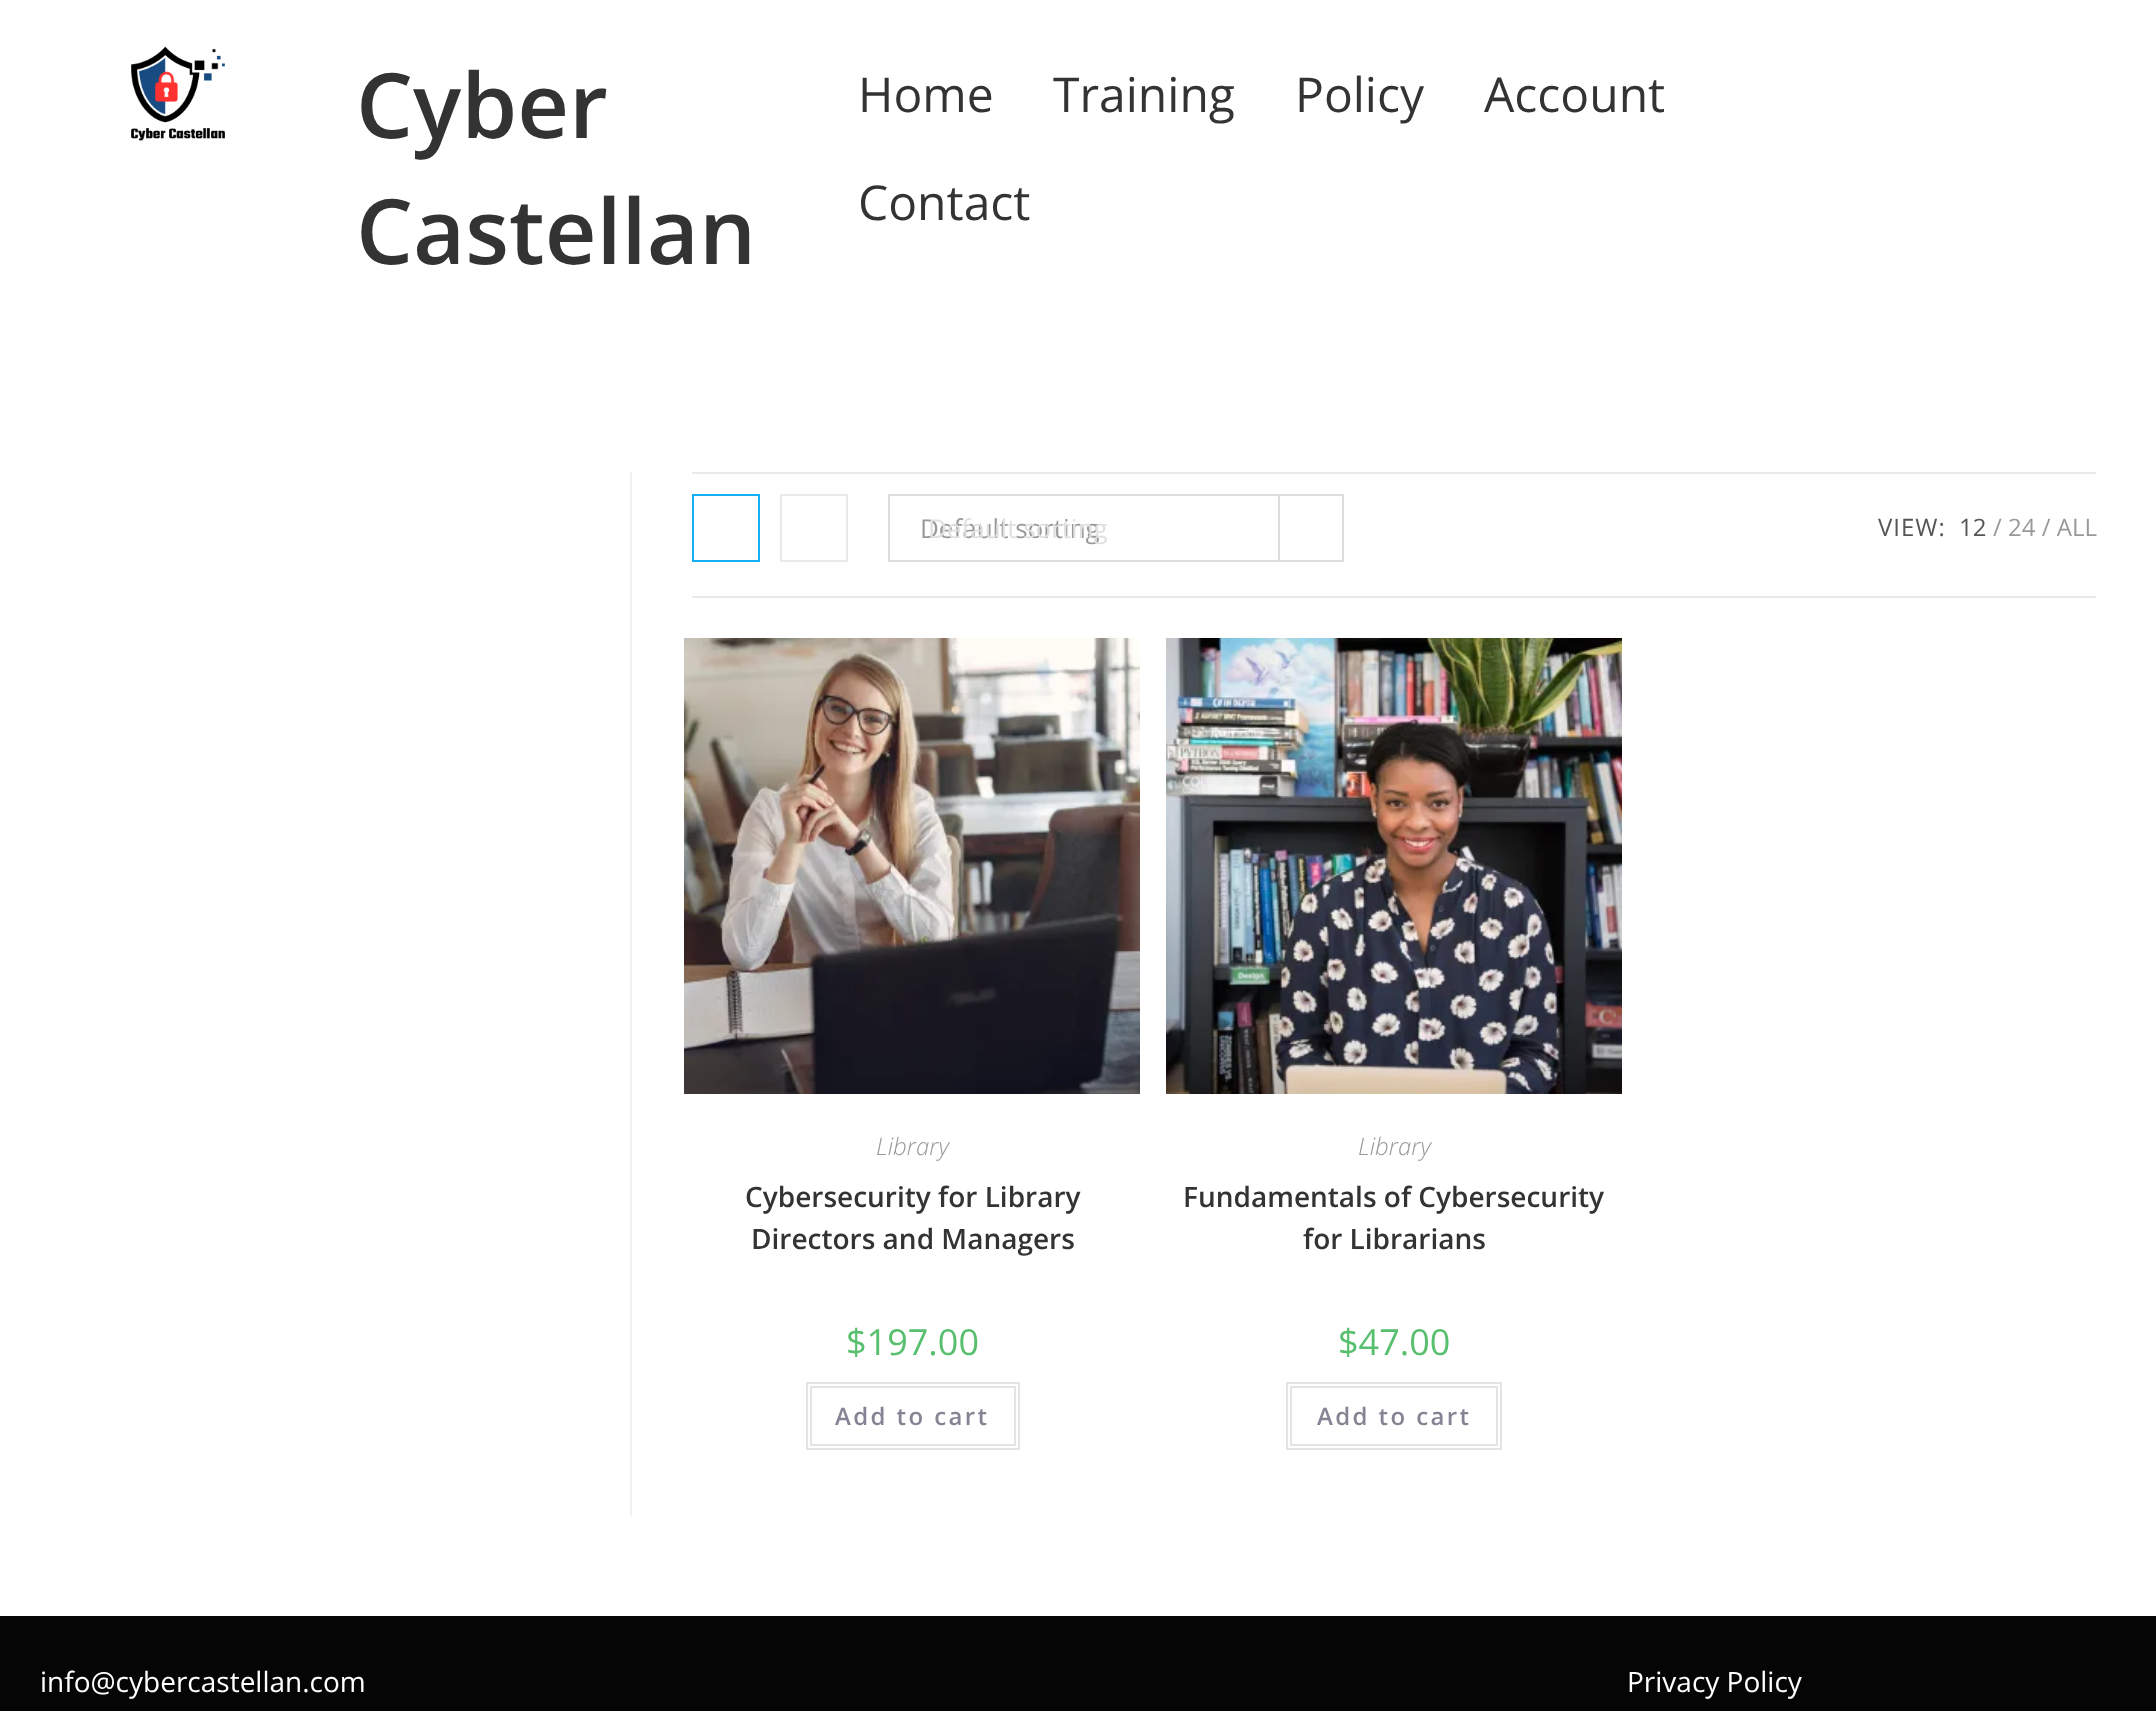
<!DOCTYPE html>
<meta charset="utf-8">
<style>body { margin: 0 } canvas { display: block }</style>
<canvas id="canvas" width="2156" height="1711"></canvas>
<script type="module">
  const canvas = document.getElementById("canvas");
  const g = canvas.getContext("2d");
  g.miterLimit = 4;
  g.fontKerning = "normal";
  function drawText(s, x, y, [font, color]) {
    g.font = font;
    g.fillStyle = color;
    g.fillText(s, x, y);
  }
  function fillBox(x, y, w, h, color) {
    g.fillStyle = color;
    g.fillRect(x, y, w, h);
  }
  async function drawPicture(src, x, y, w, h) {
    const img = new Image();
    img.src = src;
    await img.decode();
    g.drawImage(img, x, y, w, h);
  }

  const s1 = ["600 90px Open Sans", "#333333"];
  const s2 = ["48px Open Sans", "#333333"];
  const s3 = ["26px Open Sans", "#999999"];
  const s4 = ["26px Open Sans", "#E0E0E0"];
  const s5 = ["24px Open Sans", "#555555"];
  const s6 = ["24px Open Sans", "#999999"];
  const s7 = ["italic 300 24px Open Sans", "#999999"];
  const s8 = ["600 28px Open Sans", "#333333"];
  const s9 = ["36px Open Sans", "#57BF6D"];
  const s10 = ["600 24px Open Sans", "#848494"];
  const s11 = ["28px Open Sans", "#FFFFFF"];

  fillBox(0, 0, 2156, 1711, "#FFFFFF");
  await drawPicture("pic1.png", 131, 46, 94, 95);
  drawText("Cyber", 356, 138, s1);
  drawText("Castellan", 356, 264, s1);
  drawText("Home", 858, 112, s2);
  drawText("Training", 1053, 112, s2);
  drawText("Policy", 1295, 112, s2);
  drawText("Account", 1484, 112, s2);
  drawText("Contact", 858, 220, s2);
  fillBox(630, 472, 2, 1044, "#F1F1F1");
  fillBox(692, 472, 1404, 2, "#EAEAEA");
  fillBox(692, 596, 1404, 2, "#EAEAEA");
  g.strokeStyle = "#13AFF0";
  g.lineWidth = 2;
  g.strokeRect(693, 495, 66, 66);
  g.strokeStyle = "#EAEAEA";
  g.strokeRect(781, 495, 66, 66);
  g.strokeStyle = "#DDDDDD";
  g.strokeRect(889, 495, 454, 66);
  drawText("Default sorting", 920, 538, s3);
  fillBox(1278, 496, 2, 64, "#DDDDDD");
  drawText("Default sorting", 928, 538, s4);
  g.letterSpacing = "1px";
  drawText("VIEW:", 1878, 536, s5);
  g.letterSpacing = "0px";
  drawText("12", 1959, 536, s5);
  drawText("/ 24 / ALL", 1993, 536, s6);
  await drawPicture("pic2.png", 684, 638, 456, 456);
  drawText("Library", 876, 1155, s7);
  drawText("Cybersecurity for Library", 745, 1207, s8);
  drawText("Directors and Managers", 751, 1249, s8);
  drawText("$197.00", 846, 1355, s9);
  g.strokeStyle = "#E4E4E4";
  g.strokeRect(807, 1383, 212, 66);
  g.strokeRect(811, 1387, 204, 58);
  g.letterSpacing = "2.4px";
  drawText("Add to cart", 835, 1425, s10);
  await drawPicture("pic3.png", 1166, 638, 456, 456);
  g.letterSpacing = "0px";
  drawText("Library", 1358, 1155, s7);
  drawText("Fundamentals of Cybersecurity", 1183, 1207, s8);
  drawText("for Librarians", 1303, 1249, s8);
  drawText("$47.00", 1338, 1355, s9);
  g.strokeRect(1287, 1383, 214, 66);
  g.strokeRect(1291, 1387, 206, 58);
  g.letterSpacing = "2.4px";
  drawText("Add to cart", 1317, 1425, s10);
  fillBox(0, 1616, 2156, 95, "#050505");
  g.letterSpacing = "0px";
  drawText("info@cybercastellan.com", 40, 1692, s11);
  drawText("Privacy Policy", 1627, 1692, s11);
</script>
